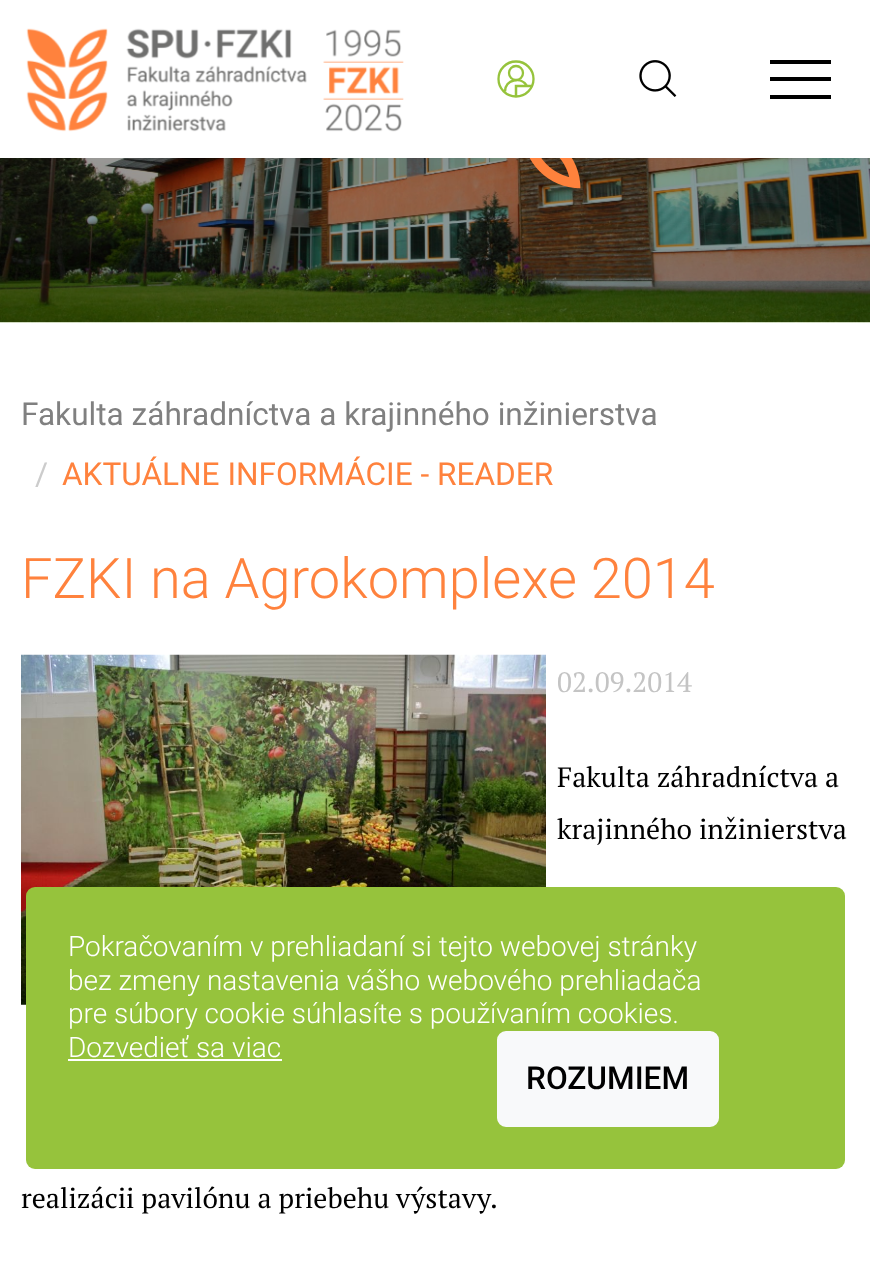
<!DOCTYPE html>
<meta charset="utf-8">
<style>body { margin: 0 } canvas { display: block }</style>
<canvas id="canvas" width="870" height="1284"></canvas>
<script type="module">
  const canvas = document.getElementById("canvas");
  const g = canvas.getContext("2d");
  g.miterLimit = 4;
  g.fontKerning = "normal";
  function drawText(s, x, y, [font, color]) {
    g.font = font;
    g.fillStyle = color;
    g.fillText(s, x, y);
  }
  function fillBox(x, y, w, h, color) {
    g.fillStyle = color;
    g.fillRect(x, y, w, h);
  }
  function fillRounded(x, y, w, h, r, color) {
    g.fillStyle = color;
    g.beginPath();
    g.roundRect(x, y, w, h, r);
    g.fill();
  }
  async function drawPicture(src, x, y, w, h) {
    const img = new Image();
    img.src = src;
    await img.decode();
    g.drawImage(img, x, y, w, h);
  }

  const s1 = ["31.6px Roboto", "#808080"];
  const s2 = ["31.6px Roboto", "#CCCCCC"];
  const s3 = ["31.6px Roboto", "#FF823D"];
  const s4 = ["300 56px Roboto", "#FF823D"];
  const s5 = ["28px PT Serif", "#C4C4C4"];
  const s6 = ["28px PT Serif", "#000000"];
  const s7 = ["300 28px Roboto", "#FFFFFF"];
  const s8 = ["500 31.6px Roboto", "#000000"];

  fillBox(0, 0, 870, 1284, "#FFFFFF");
  await drawPicture("pic1.png", 26, 28, 378, 104);
  g.beginPath();
  g.arc(516, 79, 17.5, 0, Math.PI * 2);
  g.strokeStyle = "#96C33C";
  g.lineWidth = 2.3;
  g.stroke();
  g.beginPath();
  g.arc(516, 73, 7, 0, Math.PI * 2);
  g.stroke();
  g.beginPath();
  g.moveTo(505, 91.5);
  g.bezierCurveTo(505, 79.5, 521, 76, 527, 86);
  g.moveTo(516, 96);
  g.lineTo(516, 86);
  g.lineTo(532.5, 86);
  g.lineWidth = 2.5;
  g.stroke();
  await drawPicture("pic2.png", 639, 60, 38, 37);
  fillBox(770, 60, 61, 4, "#000000");
  fillBox(770, 77, 61, 4, "#000000");
  fillBox(770, 95, 61, 4, "#000000");
  await drawPicture("pic3.png", 0, 158, 870, 165);
  await drawPicture("pic4.png", 529, 158, 52, 31);
  drawText("Fakulta záhradníctva a krajinného inžinierstva", 21, 425, s1);
  drawText("/", 35, 485, s2);
  drawText("AKTUÁLNE INFORMÁCIE - READER", 62, 485, s3);
  drawText("FZKI na Agrokomplexe 2014", 21, 598, s4);
  await drawPicture("pic5.png", 21, 654, 525, 351);
  drawText("02.09.2014", 557, 692, s5);
  drawText("Fakulta záhradníctva a", 557, 787, s6);
  drawText("krajinného inžinierstva", 557, 839, s6);
  drawText("realizácii pavilónu a priebehu výstavy.", 21, 1208, s6);
  fillRounded(26, 887, 819, 282, 9, "#96C33C");
  drawText("Pokračovaním v prehliadaní si tejto webovej stránky", 68, 956, s7);
  drawText("bez zmeny nastavenia vášho webového prehliadača", 68, 990, s7);
  drawText("pre súbory cookie súhlasíte s používaním cookies.", 68, 1023, s7);
  drawText("Dozvedieť sa viac", 68, 1057, s7);
  fillBox(68, 1059, 214, 2, "#FFFFFF");
  g.fillStyle = "#F8F9FA";
  g.beginPath();
  g.roundRect(498, 1032, 220, 94, 8);
  g.fill();
  g.strokeStyle = "#F8F9FA";
  g.lineWidth = 2;
  g.stroke();
  drawText("ROZUMIEM", 526, 1089, s8);
</script>
